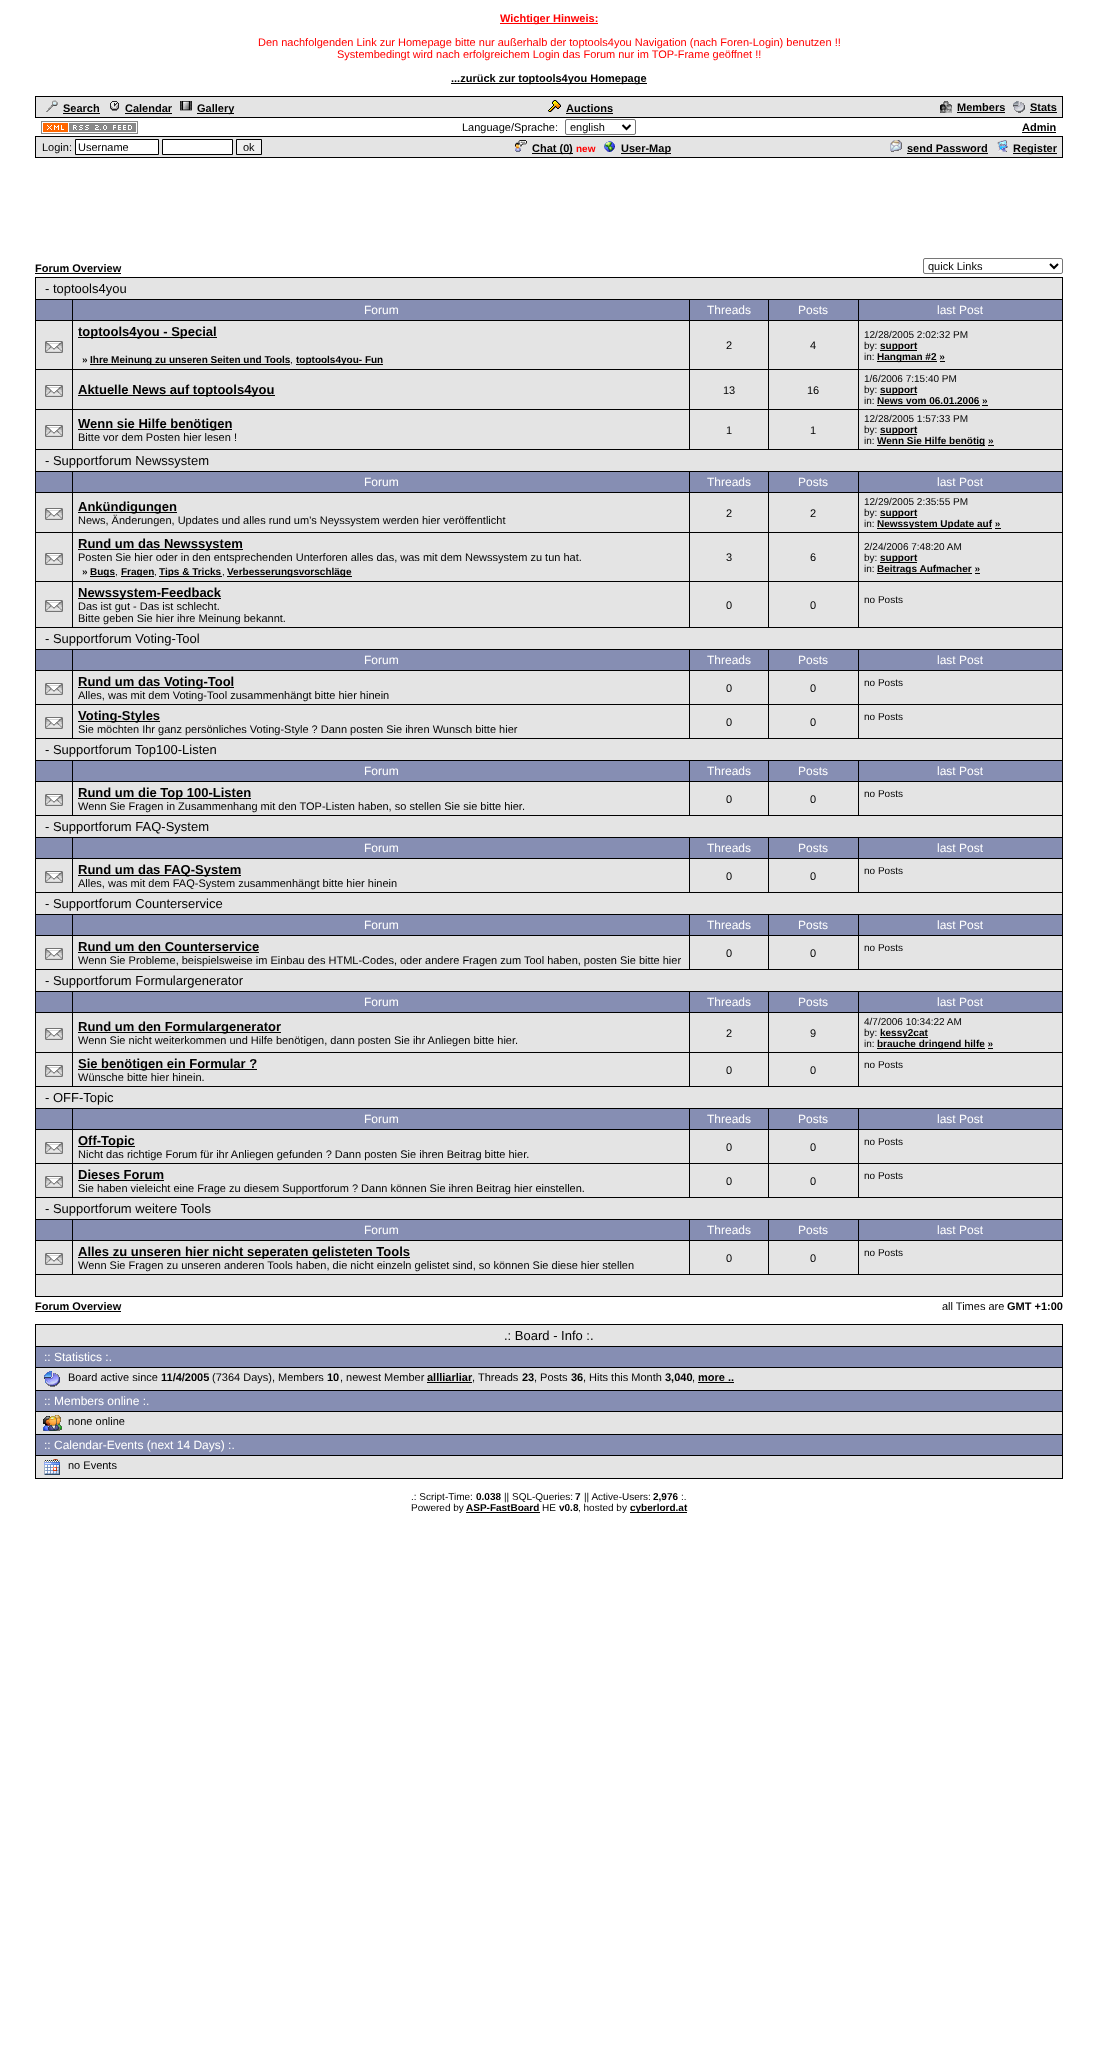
<!DOCTYPE html>
<meta charset="utf-8">
<style>body { margin: 0 } canvas { display: block }</style>
<canvas id="canvas" width="1098" height="2045"></canvas>
<script type="module">
  const canvas = document.getElementById("canvas");
  const g = canvas.getContext("2d");
  g.miterLimit = 4;
  g.fontKerning = "normal";
  function drawText(s, x, y, [font, color]) {
    g.font = font;
    g.fillStyle = color;
    g.fillText(s, x, y);
  }
  function fillBox(x, y, w, h, color) {
    g.fillStyle = color;
    g.fillRect(x, y, w, h);
  }
  async function drawPicture(src, x, y, w, h) {
    const img = new Image();
    img.src = src;
    await img.decode();
    g.drawImage(img, x, y, w, h);
  }

  const s1 = ["bold 11px Liberation Sans", "#FF0000"];
  const s2 = ["11px Liberation Sans", "#FF0000"];
  const s3 = ["bold 11px Liberation Sans", "#000000"];
  const s4 = ["11px Liberation Sans", "#000000"];
  const s5 = ["bold 10px Liberation Sans", "#FF0000"];
  const s6 = ["13px Liberation Sans", "#000000"];
  const s7 = ["12px Liberation Sans", "#FFFFFF"];
  const s8 = ["bold 13px Liberation Sans", "#000000"];
  const s9 = ["bold 10px Liberation Sans", "#000000"];
  const s10 = ["10px Liberation Sans", "#000000"];

  fillBox(0, 0, 1098, 2045, "#FFFFFF");
  fillBox(500, 23, 98, 1, "#FF0000");
  drawText("Wichtiger Hinweis:", 500, 22, s1);
  drawText("Den nachfolgenden Link zur Homepage bitte nur außerhalb der toptools4you Navigation (nach Foren-Login) benutzen !!", 258, 46, s2);
  drawText("Systembedingt wird nach erfolgreichem Login das Forum nur im TOP-Frame geöffnet !!", 337, 58, s2);
  fillBox(451, 83, 196, 1, "#000000");
  drawText("...zurück zur toptools4you Homepage", 451, 82, s3);
  fillBox(36, 97, 1026, 20, "#E4E4E4");
  fillBox(35, 96, 1028, 1, "#000000");
  fillBox(1062, 96, 1, 22, "#000000");
  fillBox(35, 117, 1028, 1, "#000000");
  fillBox(35, 96, 1, 22, "#000000");
  await drawPicture("pic1.png", 46, 100, 12, 12);
  drawText("Search", 63, 112, s3);
  fillBox(63, 113, 37, 1, "#000000");
  await drawPicture("pic2.png", 110, 101, 9, 10);
  drawText("Calendar", 125, 112, s3);
  fillBox(125, 113, 47, 1, "#000000");
  await drawPicture("pic3.png", 180, 101, 12, 10);
  fillBox(197, 113, 37, 1, "#000000");
  drawText("Gallery", 197, 112, s3);
  await drawPicture("pic4.png", 548, 100, 13, 12);
  drawText("Auctions", 566, 112, s3);
  fillBox(566, 113, 47, 1, "#000000");
  await drawPicture("pic5.png", 940, 101, 12, 12);
  drawText("Members", 957, 111, s3);
  fillBox(957, 112, 48, 1, "#000000");
  await drawPicture("pic6.png", 1013, 101, 12, 12);
  drawText("Stats", 1030, 111, s3);
  fillBox(1030, 112, 27, 1, "#000000");
  await drawPicture("pic7.png", 41, 121, 97, 13);
  drawText("Language/Sprache:", 462, 131, s4);
  g.beginPath();
  g.roundRect(565.5, 119.5, 70, 15, 1.5);
  g.strokeStyle = "#767676";
  g.stroke();
  g.beginPath();
  g.moveTo(622.5, 125);
  g.lineTo(626.5, 129);
  g.lineTo(630.5, 125);
  g.strokeStyle = "#000000";
  g.lineWidth = 2;
  g.stroke();
  drawText("english", 570, 131, s4);
  drawText("Admin", 1022, 131, s3);
  fillBox(1022, 132, 34, 1, "#000000");
  fillBox(36, 137, 1026, 20, "#E4E4E4");
  fillBox(35, 136, 1028, 1, "#000000");
  fillBox(1062, 136, 1, 22, "#000000");
  fillBox(35, 157, 1028, 1, "#000000");
  fillBox(35, 136, 1, 22, "#000000");
  drawText("Login:", 42, 151, s4);
  g.fillStyle = "#FFFFFF";
  g.beginPath();
  g.rect(75.5, 139.5, 83, 15);
  g.fill();
  g.lineWidth = 1;
  g.stroke();
  drawText("Username", 78, 151, s4);
  g.fillStyle = "#FFFFFF";
  g.beginPath();
  g.rect(162.5, 139.5, 70, 15);
  g.fill();
  g.stroke();
  g.fillStyle = "#EFEFEF";
  g.beginPath();
  g.rect(236.5, 139.5, 25, 15);
  g.fill();
  g.stroke();
  drawText("ok", 243, 151, s4);
  await drawPicture("pic8.png", 515, 140, 12, 12);
  fillBox(532, 153, 31, 1, "#000000");
  drawText("Chat (0", 532, 152, s3);
  fillBox(563, 153, 10, 1, "#000000");
  drawText(")", 569, 152, s3);
  drawText("new", 576, 152, s5);
  await drawPicture("pic9.png", 604, 141, 11, 11);
  fillBox(621, 153, 50, 1, "#000000");
  drawText("User-Map", 621, 152, s3);
  await drawPicture("pic10.png", 890, 140, 12, 12);
  drawText("send Password", 907, 152, s3);
  fillBox(907, 153, 81, 1, "#000000");
  await drawPicture("pic11.png", 997, 140, 11, 12);
  fillBox(1013, 153, 44, 1, "#000000");
  drawText("Register", 1013, 152, s3);
  drawText("Forum Overview", 35, 272, s3);
  fillBox(35, 273, 86, 1, "#000000");
  g.beginPath();
  g.roundRect(923.5, 258.5, 139, 15, 1.5);
  g.strokeStyle = "#767676";
  g.stroke();
  g.beginPath();
  g.moveTo(1050, 264);
  g.lineTo(1054, 268);
  g.lineTo(1058, 264);
  g.strokeStyle = "#000000";
  g.lineWidth = 2;
  g.stroke();
  drawText("quick Links", 928, 270, s4);
  fillBox(36, 278, 1026, 1018, "#E4E4E4");
  fillBox(35, 277, 1028, 1, "#000000");
  fillBox(858, 299, 205, 1, "#000000");
  fillBox(858, 320, 205, 1, "#000000");
  fillBox(858, 369, 205, 1, "#000000");
  fillBox(858, 409, 205, 1, "#000000");
  fillBox(35, 449, 1028, 1, "#000000");
  fillBox(858, 471, 205, 1, "#000000");
  fillBox(858, 492, 205, 1, "#000000");
  fillBox(858, 532, 205, 1, "#000000");
  fillBox(858, 581, 205, 1, "#000000");
  fillBox(35, 627, 1028, 1, "#000000");
  fillBox(858, 649, 205, 1, "#000000");
  fillBox(858, 670, 205, 1, "#000000");
  fillBox(858, 704, 205, 1, "#000000");
  fillBox(35, 738, 1028, 1, "#000000");
  fillBox(858, 760, 205, 1, "#000000");
  fillBox(858, 781, 205, 1, "#000000");
  fillBox(35, 815, 1028, 1, "#000000");
  fillBox(858, 837, 205, 1, "#000000");
  fillBox(858, 858, 205, 1, "#000000");
  fillBox(35, 892, 1028, 1, "#000000");
  fillBox(858, 914, 205, 1, "#000000");
  fillBox(858, 935, 205, 1, "#000000");
  fillBox(35, 969, 1028, 1, "#000000");
  fillBox(858, 991, 205, 1, "#000000");
  fillBox(858, 1012, 205, 1, "#000000");
  fillBox(858, 1052, 205, 1, "#000000");
  fillBox(35, 1086, 1028, 1, "#000000");
  fillBox(858, 1108, 205, 1, "#000000");
  fillBox(858, 1129, 205, 1, "#000000");
  fillBox(858, 1163, 205, 1, "#000000");
  fillBox(35, 1197, 1028, 1, "#000000");
  fillBox(858, 1219, 205, 1, "#000000");
  fillBox(858, 1240, 205, 1, "#000000");
  fillBox(35, 1274, 1028, 1, "#000000");
  fillBox(1062, 1274, 1, 23, "#000000");
  fillBox(1062, 1240, 1, 35, "#000000");
  fillBox(1062, 1219, 1, 22, "#000000");
  fillBox(1062, 1197, 1, 23, "#000000");
  fillBox(1062, 1163, 1, 35, "#000000");
  fillBox(1062, 1129, 1, 35, "#000000");
  fillBox(1062, 1108, 1, 22, "#000000");
  fillBox(1062, 1086, 1, 23, "#000000");
  fillBox(1062, 1052, 1, 35, "#000000");
  fillBox(1062, 1012, 1, 41, "#000000");
  fillBox(1062, 991, 1, 22, "#000000");
  fillBox(1062, 969, 1, 23, "#000000");
  fillBox(1062, 935, 1, 35, "#000000");
  fillBox(1062, 914, 1, 22, "#000000");
  fillBox(1062, 892, 1, 23, "#000000");
  fillBox(1062, 858, 1, 35, "#000000");
  fillBox(1062, 837, 1, 22, "#000000");
  fillBox(1062, 815, 1, 23, "#000000");
  fillBox(1062, 781, 1, 35, "#000000");
  fillBox(1062, 760, 1, 22, "#000000");
  fillBox(1062, 738, 1, 23, "#000000");
  fillBox(1062, 704, 1, 35, "#000000");
  fillBox(1062, 670, 1, 35, "#000000");
  fillBox(1062, 649, 1, 22, "#000000");
  fillBox(1062, 627, 1, 23, "#000000");
  fillBox(1062, 581, 1, 47, "#000000");
  fillBox(1062, 532, 1, 50, "#000000");
  fillBox(1062, 492, 1, 41, "#000000");
  fillBox(1062, 471, 1, 22, "#000000");
  fillBox(1062, 449, 1, 23, "#000000");
  fillBox(1062, 409, 1, 41, "#000000");
  fillBox(1062, 369, 1, 41, "#000000");
  fillBox(1062, 320, 1, 50, "#000000");
  fillBox(1062, 299, 1, 22, "#000000");
  fillBox(1062, 277, 1, 23, "#000000");
  fillBox(858, 409, 1, 41, "#000000");
  fillBox(768, 409, 91, 1, "#000000");
  fillBox(858, 369, 1, 41, "#000000");
  fillBox(768, 369, 91, 1, "#000000");
  fillBox(858, 320, 1, 50, "#000000");
  fillBox(768, 320, 91, 1, "#000000");
  fillBox(858, 299, 1, 22, "#000000");
  fillBox(768, 299, 91, 1, "#000000");
  fillBox(768, 409, 1, 41, "#000000");
  fillBox(689, 409, 80, 1, "#000000");
  fillBox(768, 369, 1, 41, "#000000");
  fillBox(689, 369, 80, 1, "#000000");
  fillBox(768, 320, 1, 50, "#000000");
  fillBox(689, 320, 80, 1, "#000000");
  fillBox(768, 299, 1, 22, "#000000");
  fillBox(689, 299, 80, 1, "#000000");
  fillBox(689, 409, 1, 41, "#000000");
  fillBox(72, 409, 618, 1, "#000000");
  fillBox(689, 369, 1, 41, "#000000");
  fillBox(72, 369, 618, 1, "#000000");
  fillBox(689, 320, 1, 50, "#000000");
  fillBox(72, 320, 618, 1, "#000000");
  fillBox(689, 299, 1, 22, "#000000");
  fillBox(72, 299, 618, 1, "#000000");
  fillBox(72, 409, 1, 41, "#000000");
  fillBox(35, 409, 38, 1, "#000000");
  fillBox(72, 369, 1, 41, "#000000");
  fillBox(35, 369, 38, 1, "#000000");
  fillBox(72, 320, 1, 50, "#000000");
  fillBox(35, 320, 38, 1, "#000000");
  fillBox(72, 299, 1, 22, "#000000");
  fillBox(35, 299, 38, 1, "#000000");
  fillBox(858, 581, 1, 47, "#000000");
  fillBox(768, 581, 91, 1, "#000000");
  fillBox(858, 532, 1, 50, "#000000");
  fillBox(768, 532, 91, 1, "#000000");
  fillBox(858, 492, 1, 41, "#000000");
  fillBox(768, 492, 91, 1, "#000000");
  fillBox(858, 471, 1, 22, "#000000");
  fillBox(768, 471, 91, 1, "#000000");
  fillBox(768, 581, 1, 47, "#000000");
  fillBox(689, 581, 80, 1, "#000000");
  fillBox(768, 532, 1, 50, "#000000");
  fillBox(689, 532, 80, 1, "#000000");
  fillBox(768, 492, 1, 41, "#000000");
  fillBox(689, 492, 80, 1, "#000000");
  fillBox(768, 471, 1, 22, "#000000");
  fillBox(689, 471, 80, 1, "#000000");
  fillBox(689, 581, 1, 47, "#000000");
  fillBox(72, 581, 618, 1, "#000000");
  fillBox(689, 532, 1, 50, "#000000");
  fillBox(72, 532, 618, 1, "#000000");
  fillBox(689, 492, 1, 41, "#000000");
  fillBox(72, 492, 618, 1, "#000000");
  fillBox(689, 471, 1, 22, "#000000");
  fillBox(72, 471, 618, 1, "#000000");
  fillBox(72, 581, 1, 47, "#000000");
  fillBox(35, 581, 38, 1, "#000000");
  fillBox(72, 532, 1, 50, "#000000");
  fillBox(35, 532, 38, 1, "#000000");
  fillBox(72, 492, 1, 41, "#000000");
  fillBox(35, 492, 38, 1, "#000000");
  fillBox(72, 471, 1, 22, "#000000");
  fillBox(35, 471, 38, 1, "#000000");
  fillBox(858, 704, 1, 35, "#000000");
  fillBox(768, 704, 91, 1, "#000000");
  fillBox(858, 670, 1, 35, "#000000");
  fillBox(768, 670, 91, 1, "#000000");
  fillBox(858, 649, 1, 22, "#000000");
  fillBox(768, 649, 91, 1, "#000000");
  fillBox(768, 704, 1, 35, "#000000");
  fillBox(689, 704, 80, 1, "#000000");
  fillBox(768, 670, 1, 35, "#000000");
  fillBox(689, 670, 80, 1, "#000000");
  fillBox(768, 649, 1, 22, "#000000");
  fillBox(689, 649, 80, 1, "#000000");
  fillBox(689, 704, 1, 35, "#000000");
  fillBox(72, 704, 618, 1, "#000000");
  fillBox(689, 670, 1, 35, "#000000");
  fillBox(72, 670, 618, 1, "#000000");
  fillBox(689, 649, 1, 22, "#000000");
  fillBox(72, 649, 618, 1, "#000000");
  fillBox(72, 704, 1, 35, "#000000");
  fillBox(35, 704, 38, 1, "#000000");
  fillBox(72, 670, 1, 35, "#000000");
  fillBox(35, 670, 38, 1, "#000000");
  fillBox(72, 649, 1, 22, "#000000");
  fillBox(35, 649, 38, 1, "#000000");
  fillBox(858, 781, 1, 35, "#000000");
  fillBox(768, 781, 91, 1, "#000000");
  fillBox(858, 760, 1, 22, "#000000");
  fillBox(768, 760, 91, 1, "#000000");
  fillBox(768, 781, 1, 35, "#000000");
  fillBox(689, 781, 80, 1, "#000000");
  fillBox(768, 760, 1, 22, "#000000");
  fillBox(689, 760, 80, 1, "#000000");
  fillBox(689, 781, 1, 35, "#000000");
  fillBox(72, 781, 618, 1, "#000000");
  fillBox(689, 760, 1, 22, "#000000");
  fillBox(72, 760, 618, 1, "#000000");
  fillBox(72, 781, 1, 35, "#000000");
  fillBox(35, 781, 38, 1, "#000000");
  fillBox(72, 760, 1, 22, "#000000");
  fillBox(35, 760, 38, 1, "#000000");
  fillBox(858, 858, 1, 35, "#000000");
  fillBox(768, 858, 91, 1, "#000000");
  fillBox(858, 837, 1, 22, "#000000");
  fillBox(768, 837, 91, 1, "#000000");
  fillBox(768, 858, 1, 35, "#000000");
  fillBox(689, 858, 80, 1, "#000000");
  fillBox(768, 837, 1, 22, "#000000");
  fillBox(689, 837, 80, 1, "#000000");
  fillBox(689, 858, 1, 35, "#000000");
  fillBox(72, 858, 618, 1, "#000000");
  fillBox(689, 837, 1, 22, "#000000");
  fillBox(72, 837, 618, 1, "#000000");
  fillBox(72, 858, 1, 35, "#000000");
  fillBox(35, 858, 38, 1, "#000000");
  fillBox(72, 837, 1, 22, "#000000");
  fillBox(35, 837, 38, 1, "#000000");
  fillBox(858, 935, 1, 35, "#000000");
  fillBox(768, 935, 91, 1, "#000000");
  fillBox(858, 914, 1, 22, "#000000");
  fillBox(768, 914, 91, 1, "#000000");
  fillBox(768, 935, 1, 35, "#000000");
  fillBox(689, 935, 80, 1, "#000000");
  fillBox(768, 914, 1, 22, "#000000");
  fillBox(689, 914, 80, 1, "#000000");
  fillBox(689, 935, 1, 35, "#000000");
  fillBox(72, 935, 618, 1, "#000000");
  fillBox(689, 914, 1, 22, "#000000");
  fillBox(72, 914, 618, 1, "#000000");
  fillBox(72, 935, 1, 35, "#000000");
  fillBox(35, 935, 38, 1, "#000000");
  fillBox(72, 914, 1, 22, "#000000");
  fillBox(35, 914, 38, 1, "#000000");
  fillBox(858, 1052, 1, 35, "#000000");
  fillBox(768, 1052, 91, 1, "#000000");
  fillBox(858, 1012, 1, 41, "#000000");
  fillBox(768, 1012, 91, 1, "#000000");
  fillBox(858, 991, 1, 22, "#000000");
  fillBox(768, 991, 91, 1, "#000000");
  fillBox(768, 1052, 1, 35, "#000000");
  fillBox(689, 1052, 80, 1, "#000000");
  fillBox(768, 1012, 1, 41, "#000000");
  fillBox(689, 1012, 80, 1, "#000000");
  fillBox(768, 991, 1, 22, "#000000");
  fillBox(689, 991, 80, 1, "#000000");
  fillBox(689, 1052, 1, 35, "#000000");
  fillBox(72, 1052, 618, 1, "#000000");
  fillBox(689, 1012, 1, 41, "#000000");
  fillBox(72, 1012, 618, 1, "#000000");
  fillBox(689, 991, 1, 22, "#000000");
  fillBox(72, 991, 618, 1, "#000000");
  fillBox(72, 1052, 1, 35, "#000000");
  fillBox(35, 1052, 38, 1, "#000000");
  fillBox(72, 1012, 1, 41, "#000000");
  fillBox(35, 1012, 38, 1, "#000000");
  fillBox(72, 991, 1, 22, "#000000");
  fillBox(35, 991, 38, 1, "#000000");
  fillBox(858, 1163, 1, 35, "#000000");
  fillBox(768, 1163, 91, 1, "#000000");
  fillBox(858, 1129, 1, 35, "#000000");
  fillBox(768, 1129, 91, 1, "#000000");
  fillBox(858, 1108, 1, 22, "#000000");
  fillBox(768, 1108, 91, 1, "#000000");
  fillBox(768, 1163, 1, 35, "#000000");
  fillBox(689, 1163, 80, 1, "#000000");
  fillBox(768, 1129, 1, 35, "#000000");
  fillBox(689, 1129, 80, 1, "#000000");
  fillBox(768, 1108, 1, 22, "#000000");
  fillBox(689, 1108, 80, 1, "#000000");
  fillBox(689, 1163, 1, 35, "#000000");
  fillBox(72, 1163, 618, 1, "#000000");
  fillBox(689, 1129, 1, 35, "#000000");
  fillBox(72, 1129, 618, 1, "#000000");
  fillBox(689, 1108, 1, 22, "#000000");
  fillBox(72, 1108, 618, 1, "#000000");
  fillBox(72, 1163, 1, 35, "#000000");
  fillBox(35, 1163, 38, 1, "#000000");
  fillBox(72, 1129, 1, 35, "#000000");
  fillBox(35, 1129, 38, 1, "#000000");
  fillBox(72, 1108, 1, 22, "#000000");
  fillBox(35, 1108, 38, 1, "#000000");
  fillBox(858, 1240, 1, 35, "#000000");
  fillBox(768, 1240, 91, 1, "#000000");
  fillBox(858, 1219, 1, 22, "#000000");
  fillBox(768, 1219, 91, 1, "#000000");
  fillBox(768, 1240, 1, 35, "#000000");
  fillBox(689, 1240, 80, 1, "#000000");
  fillBox(768, 1219, 1, 22, "#000000");
  fillBox(689, 1219, 80, 1, "#000000");
  fillBox(689, 1240, 1, 35, "#000000");
  fillBox(72, 1240, 618, 1, "#000000");
  fillBox(689, 1219, 1, 22, "#000000");
  fillBox(72, 1219, 618, 1, "#000000");
  fillBox(72, 1240, 1, 35, "#000000");
  fillBox(35, 1240, 38, 1, "#000000");
  fillBox(72, 1219, 1, 22, "#000000");
  fillBox(35, 1219, 38, 1, "#000000");
  fillBox(35, 1296, 1028, 1, "#000000");
  fillBox(35, 1274, 1, 23, "#000000");
  fillBox(35, 1240, 1, 35, "#000000");
  fillBox(35, 1219, 1, 22, "#000000");
  fillBox(35, 1197, 1, 23, "#000000");
  fillBox(35, 1163, 1, 35, "#000000");
  fillBox(35, 1129, 1, 35, "#000000");
  fillBox(35, 1108, 1, 22, "#000000");
  fillBox(35, 1086, 1, 23, "#000000");
  fillBox(35, 1052, 1, 35, "#000000");
  fillBox(35, 1012, 1, 41, "#000000");
  fillBox(35, 991, 1, 22, "#000000");
  fillBox(35, 969, 1, 23, "#000000");
  fillBox(35, 935, 1, 35, "#000000");
  fillBox(35, 914, 1, 22, "#000000");
  fillBox(35, 892, 1, 23, "#000000");
  fillBox(35, 858, 1, 35, "#000000");
  fillBox(35, 837, 1, 22, "#000000");
  fillBox(35, 815, 1, 23, "#000000");
  fillBox(35, 781, 1, 35, "#000000");
  fillBox(35, 760, 1, 22, "#000000");
  fillBox(35, 738, 1, 23, "#000000");
  fillBox(35, 704, 1, 35, "#000000");
  fillBox(35, 670, 1, 35, "#000000");
  fillBox(35, 649, 1, 22, "#000000");
  fillBox(35, 627, 1, 23, "#000000");
  fillBox(35, 581, 1, 47, "#000000");
  fillBox(35, 532, 1, 50, "#000000");
  fillBox(35, 492, 1, 41, "#000000");
  fillBox(35, 471, 1, 22, "#000000");
  fillBox(35, 449, 1, 23, "#000000");
  fillBox(35, 409, 1, 41, "#000000");
  fillBox(35, 369, 1, 41, "#000000");
  fillBox(35, 320, 1, 50, "#000000");
  fillBox(35, 299, 1, 22, "#000000");
  fillBox(35, 277, 1, 23, "#000000");
  drawText("- toptools4you", 45, 293, s6);
  fillBox(36, 300, 36, 20, "#868EB3");
  fillBox(73, 300, 616, 20, "#868EB3");
  drawText("Forum", 364, 314, s7);
  fillBox(690, 300, 78, 20, "#868EB3");
  drawText("Threads", 707, 314, s7);
  fillBox(769, 300, 89, 20, "#868EB3");
  drawText("Posts", 798, 314, s7);
  fillBox(859, 300, 203, 20, "#868EB3");
  drawText("last Post", 937, 314, s7);
  await drawPicture("pic12.png", 45, 341, 18, 12);
  fillBox(78, 337, 139, 1, "#000000");
  drawText("toptools4you - Special", 78, 336, s8);
  drawText("»", 82, 363, s9);
  fillBox(90, 364, 200, 1, "#000000");
  drawText("Ihre Meinung zu unseren Seiten und Tools", 90, 363, s9);
  drawText(",", 290, 363, s10);
  fillBox(296, 364, 87, 1, "#000000");
  drawText("toptools4you- Fun", 296, 363, s9);
  drawText("2", 726, 349, s4);
  drawText("4", 810, 349, s4);
  drawText("12/28/2005 2:02:32 PM", 864, 338, s10);
  drawText("by:", 864, 349, s10);
  fillBox(880, 350, 37, 1, "#000000");
  drawText("support", 880, 349, s9);
  drawText("in:", 864, 360, s10);
  fillBox(877, 361, 60, 1, "#000000");
  drawText("Hangman #2 »", 877, 360, s9);
  fillBox(940, 361, 5, 1, "#000000");
  await drawPicture("pic12.png", 45, 385, 18, 12);
  fillBox(78, 395, 197, 1, "#000000");
  drawText("Aktuelle News auf toptools4you", 78, 394, s8);
  drawText("13", 723, 394, s4);
  drawText("16", 807, 394, s4);
  drawText("1/6/2006 7:15:40 PM", 864, 382, s10);
  drawText("by:", 864, 393, s10);
  fillBox(880, 394, 37, 1, "#000000");
  drawText("support", 880, 393, s9);
  drawText("in:", 864, 404, s10);
  drawText("News vom 06.01.2006 »", 877, 404, s9);
  fillBox(877, 405, 103, 1, "#000000");
  fillBox(982, 405, 6, 1, "#000000");
  await drawPicture("pic12.png", 45, 425, 18, 12);
  fillBox(78, 429, 154, 1, "#000000");
  drawText("Wenn sie Hilfe benötigen", 78, 428, s8);
  drawText("Bitte vor dem Posten hier lesen !", 78, 441, s4);
  drawText("1", 726, 434, s4);
  drawText("1", 810, 434, s4);
  drawText("12/28/2005 1:57:33 PM", 864, 422, s10);
  drawText("by:", 864, 433, s10);
  fillBox(880, 434, 37, 1, "#000000");
  drawText("support", 880, 433, s9);
  drawText("in:", 864, 444, s10);
  fillBox(877, 445, 108, 1, "#000000");
  drawText("Wenn Sie Hilfe benötig »", 877, 444, s9);
  fillBox(988, 445, 6, 1, "#000000");
  drawText("- Supportforum Newssystem", 45, 465, s6);
  fillBox(36, 472, 36, 20, "#868EB3");
  fillBox(73, 472, 616, 20, "#868EB3");
  drawText("Forum", 364, 486, s7);
  fillBox(690, 472, 78, 20, "#868EB3");
  drawText("Threads", 707, 486, s7);
  fillBox(769, 472, 89, 20, "#868EB3");
  drawText("Posts", 798, 486, s7);
  fillBox(859, 472, 203, 20, "#868EB3");
  drawText("last Post", 937, 486, s7);
  await drawPicture("pic12.png", 45, 508, 18, 12);
  fillBox(78, 512, 99, 1, "#000000");
  drawText("Ankündigungen", 78, 511, s8);
  drawText("News, Änderungen, Updates und alles rund um's Neyssystem werden hier veröffentlicht", 78, 524, s4);
  drawText("2", 726, 517, s4);
  drawText("2", 810, 517, s4);
  drawText("12/29/2005 2:35:55 PM", 864, 505, s10);
  drawText("by:", 864, 516, s10);
  fillBox(880, 517, 37, 1, "#000000");
  drawText("support", 880, 516, s9);
  drawText("in:", 864, 527, s10);
  fillBox(877, 528, 115, 1, "#000000");
  drawText("Newssystem Update auf »", 877, 527, s9);
  fillBox(995, 528, 6, 1, "#000000");
  await drawPicture("pic12.png", 45, 553, 18, 12);
  fillBox(78, 549, 165, 1, "#000000");
  drawText("Rund um das Newssystem", 78, 548, s8);
  drawText("Posten Sie hier oder in den entsprechenden Unterforen alles das, was mit dem Newssystem zu tun hat.", 78, 561, s4);
  drawText("»", 82, 575, s9);
  fillBox(90, 576, 25, 1, "#000000");
  drawText("Bugs", 90, 575, s9);
  drawText(",", 115, 575, s10);
  fillBox(121, 576, 33, 1, "#000000");
  drawText("Fragen", 121, 575, s9);
  drawText(",", 154, 575, s10);
  fillBox(159, 576, 63, 1, "#000000");
  drawText("Tips & Tricks", 159, 575, s9);
  drawText(",", 222, 575, s10);
  fillBox(227, 576, 125, 1, "#000000");
  drawText("Verbesserungsvorschläge", 227, 575, s9);
  drawText("3", 726, 561, s4);
  drawText("6", 810, 561, s4);
  drawText("2/24/2006 7:48:20 AM", 864, 550, s10);
  drawText("by:", 864, 561, s10);
  fillBox(880, 562, 37, 1, "#000000");
  drawText("support", 880, 561, s9);
  drawText("in:", 864, 572, s10);
  fillBox(877, 573, 95, 1, "#000000");
  drawText("Beitrags Aufmacher »", 877, 572, s9);
  fillBox(975, 573, 5, 1, "#000000");
  await drawPicture("pic12.png", 45, 600, 18, 12);
  fillBox(78, 598, 143, 1, "#000000");
  drawText("Newssystem-Feedback", 78, 597, s8);
  drawText("Das ist gut - Das ist schlecht.", 78, 610, s4);
  drawText("Bitte geben Sie hier ihre Meinung bekannt.", 78, 622, s4);
  drawText("no Posts", 864, 603, s10);
  drawText("0", 726, 609, s4);
  drawText("0", 810, 609, s4);
  drawText("- Supportforum Voting-Tool", 45, 643, s6);
  fillBox(36, 650, 36, 20, "#868EB3");
  fillBox(73, 650, 616, 20, "#868EB3");
  drawText("Forum", 364, 664, s7);
  fillBox(690, 650, 78, 20, "#868EB3");
  drawText("Threads", 707, 664, s7);
  fillBox(769, 650, 89, 20, "#868EB3");
  drawText("Posts", 798, 664, s7);
  fillBox(859, 650, 203, 20, "#868EB3");
  drawText("last Post", 937, 664, s7);
  await drawPicture("pic12.png", 45, 683, 18, 12);
  fillBox(78, 687, 156, 1, "#000000");
  drawText("Rund um das Voting-Tool", 78, 686, s8);
  drawText("Alles, was mit dem Voting-Tool zusammenhängt bitte hier hinein", 78, 699, s4);
  drawText("no Posts", 864, 686, s10);
  drawText("0", 726, 692, s4);
  drawText("0", 810, 692, s4);
  await drawPicture("pic12.png", 45, 717, 18, 12);
  fillBox(78, 721, 82, 1, "#000000");
  drawText("Voting-Styles", 78, 720, s8);
  drawText("Sie möchten Ihr ganz persönliches Voting-Style ? Dann posten Sie ihren Wunsch bitte hier", 78, 733, s4);
  drawText("no Posts", 864, 720, s10);
  drawText("0", 726, 726, s4);
  drawText("0", 810, 726, s4);
  drawText("- Supportforum Top100-Listen", 45, 754, s6);
  fillBox(36, 761, 36, 20, "#868EB3");
  fillBox(73, 761, 616, 20, "#868EB3");
  drawText("Forum", 364, 775, s7);
  fillBox(690, 761, 78, 20, "#868EB3");
  drawText("Threads", 707, 775, s7);
  fillBox(769, 761, 89, 20, "#868EB3");
  drawText("Posts", 798, 775, s7);
  fillBox(859, 761, 203, 20, "#868EB3");
  drawText("last Post", 937, 775, s7);
  await drawPicture("pic12.png", 45, 794, 18, 12);
  fillBox(78, 798, 173, 1, "#000000");
  drawText("Rund um die Top 100-Listen", 78, 797, s8);
  drawText("Wenn Sie Fragen in Zusammenhang mit den TOP-Listen haben, so stellen Sie sie bitte hier.", 78, 810, s4);
  drawText("no Posts", 864, 797, s10);
  drawText("0", 726, 803, s4);
  drawText("0", 810, 803, s4);
  drawText("- Supportforum FAQ-System", 45, 831, s6);
  fillBox(36, 838, 36, 20, "#868EB3");
  fillBox(73, 838, 616, 20, "#868EB3");
  drawText("Forum", 364, 852, s7);
  fillBox(690, 838, 78, 20, "#868EB3");
  drawText("Threads", 707, 852, s7);
  fillBox(769, 838, 89, 20, "#868EB3");
  drawText("Posts", 798, 852, s7);
  fillBox(859, 838, 203, 20, "#868EB3");
  drawText("last Post", 937, 852, s7);
  await drawPicture("pic12.png", 45, 871, 18, 12);
  fillBox(78, 875, 163, 1, "#000000");
  drawText("Rund um das FAQ-System", 78, 874, s8);
  drawText("Alles, was mit dem FAQ-System zusammenhängt bitte hier hinein", 78, 887, s4);
  drawText("no Posts", 864, 874, s10);
  drawText("0", 726, 880, s4);
  drawText("0", 810, 880, s4);
  drawText("- Supportforum Counterservice", 45, 908, s6);
  fillBox(36, 915, 36, 20, "#868EB3");
  fillBox(73, 915, 616, 20, "#868EB3");
  drawText("Forum", 364, 929, s7);
  fillBox(690, 915, 78, 20, "#868EB3");
  drawText("Threads", 707, 929, s7);
  fillBox(769, 915, 89, 20, "#868EB3");
  drawText("Posts", 798, 929, s7);
  fillBox(859, 915, 203, 20, "#868EB3");
  drawText("last Post", 937, 929, s7);
  await drawPicture("pic12.png", 45, 948, 18, 12);
  drawText("Rund um den Counterservice", 78, 951, s8);
  fillBox(78, 952, 181, 1, "#000000");
  drawText("Wenn Sie Probleme, beispielsweise im Einbau des HTML-Codes, oder andere Fragen zum Tool haben, posten Sie bitte hier", 78, 964, s4);
  drawText("no Posts", 864, 951, s10);
  drawText("0", 726, 957, s4);
  drawText("0", 810, 957, s4);
  drawText("- Supportforum Formulargenerator", 45, 985, s6);
  fillBox(36, 992, 36, 20, "#868EB3");
  fillBox(73, 992, 616, 20, "#868EB3");
  drawText("Forum", 364, 1006, s7);
  fillBox(690, 992, 78, 20, "#868EB3");
  drawText("Threads", 707, 1006, s7);
  fillBox(769, 992, 89, 20, "#868EB3");
  drawText("Posts", 798, 1006, s7);
  fillBox(859, 992, 203, 20, "#868EB3");
  drawText("last Post", 937, 1006, s7);
  await drawPicture("pic12.png", 45, 1028, 18, 12);
  fillBox(78, 1032, 203, 1, "#000000");
  drawText("Rund um den Formulargenerator", 78, 1031, s8);
  drawText("Wenn Sie nicht weiterkommen und Hilfe benötigen, dann posten Sie ihr Anliegen bitte hier.", 78, 1044, s4);
  drawText("2", 726, 1037, s4);
  drawText("9", 810, 1037, s4);
  drawText("4/7/2006 10:34:22 AM", 864, 1025, s10);
  drawText("by:", 864, 1036, s10);
  fillBox(880, 1037, 48, 1, "#000000");
  drawText("kessy2cat", 880, 1036, s9);
  drawText("in:", 864, 1047, s10);
  fillBox(877, 1048, 108, 1, "#000000");
  drawText("brauche dringend hilfe »", 877, 1047, s9);
  fillBox(988, 1048, 5, 1, "#000000");
  await drawPicture("pic12.png", 45, 1065, 18, 12);
  fillBox(78, 1069, 179, 1, "#000000");
  drawText("Sie benötigen ein Formular ?", 78, 1068, s8);
  drawText("Wünsche bitte hier hinein.", 78, 1081, s4);
  drawText("no Posts", 864, 1068, s10);
  drawText("0", 726, 1074, s4);
  drawText("0", 810, 1074, s4);
  drawText("- OFF-Topic", 45, 1102, s6);
  fillBox(36, 1109, 36, 20, "#868EB3");
  fillBox(73, 1109, 616, 20, "#868EB3");
  drawText("Forum", 364, 1123, s7);
  fillBox(690, 1109, 78, 20, "#868EB3");
  drawText("Threads", 707, 1123, s7);
  fillBox(769, 1109, 89, 20, "#868EB3");
  drawText("Posts", 798, 1123, s7);
  fillBox(859, 1109, 203, 20, "#868EB3");
  drawText("last Post", 937, 1123, s7);
  await drawPicture("pic12.png", 45, 1142, 18, 12);
  fillBox(78, 1146, 57, 1, "#000000");
  drawText("Off-Topic", 78, 1145, s8);
  drawText("Nicht das richtige Forum für ihr Anliegen gefunden ? Dann posten Sie ihren Beitrag bitte hier.", 78, 1158, s4);
  drawText("no Posts", 864, 1145, s10);
  drawText("0", 726, 1151, s4);
  drawText("0", 810, 1151, s4);
  await drawPicture("pic12.png", 45, 1176, 18, 12);
  drawText("Dieses Forum", 78, 1179, s8);
  fillBox(78, 1180, 86, 1, "#000000");
  drawText("Sie haben vieleicht eine Frage zu diesem Supportforum ? Dann können Sie ihren Beitrag hier einstellen.", 78, 1192, s4);
  drawText("no Posts", 864, 1179, s10);
  drawText("0", 726, 1185, s4);
  drawText("0", 810, 1185, s4);
  drawText("- Supportforum weitere Tools", 45, 1213, s6);
  fillBox(36, 1220, 36, 20, "#868EB3");
  fillBox(73, 1220, 616, 20, "#868EB3");
  drawText("Forum", 364, 1234, s7);
  fillBox(690, 1220, 78, 20, "#868EB3");
  drawText("Threads", 707, 1234, s7);
  fillBox(769, 1220, 89, 20, "#868EB3");
  drawText("Posts", 798, 1234, s7);
  fillBox(859, 1220, 203, 20, "#868EB3");
  drawText("last Post", 937, 1234, s7);
  await drawPicture("pic12.png", 45, 1253, 18, 12);
  fillBox(78, 1257, 332, 1, "#000000");
  drawText("Alles zu unseren hier nicht seperaten gelisteten Tools", 78, 1256, s8);
  drawText("Wenn Sie Fragen zu unseren anderen Tools haben, die nicht einzeln gelistet sind, so können Sie diese hier stellen", 78, 1269, s4);
  drawText("no Posts", 864, 1256, s10);
  drawText("0", 726, 1262, s4);
  drawText("0", 810, 1262, s4);
  drawText("Forum Overview", 35, 1310, s3);
  fillBox(35, 1311, 86, 1, "#000000");
  drawText("all Times are", 942, 1310, s4);
  drawText("GMT +1:00", 1007, 1310, s3);
  fillBox(36, 1325, 1026, 153, "#E4E4E4");
  fillBox(35, 1324, 1028, 1, "#000000");
  fillBox(35, 1346, 1028, 1, "#000000");
  fillBox(35, 1367, 1028, 1, "#000000");
  fillBox(35, 1390, 1028, 1, "#000000");
  fillBox(35, 1411, 1028, 1, "#000000");
  fillBox(35, 1434, 1028, 1, "#000000");
  fillBox(35, 1455, 1028, 1, "#000000");
  fillBox(1062, 1455, 1, 24, "#000000");
  fillBox(1062, 1434, 1, 22, "#000000");
  fillBox(1062, 1411, 1, 24, "#000000");
  fillBox(1062, 1390, 1, 22, "#000000");
  fillBox(1062, 1367, 1, 24, "#000000");
  fillBox(1062, 1346, 1, 22, "#000000");
  fillBox(1062, 1324, 1, 23, "#000000");
  fillBox(35, 1478, 1028, 1, "#000000");
  fillBox(35, 1455, 1, 24, "#000000");
  fillBox(35, 1434, 1, 22, "#000000");
  fillBox(35, 1411, 1, 24, "#000000");
  fillBox(35, 1390, 1, 22, "#000000");
  fillBox(35, 1367, 1, 24, "#000000");
  fillBox(35, 1346, 1, 22, "#000000");
  fillBox(35, 1324, 1, 23, "#000000");
  drawText(".: Board - Info :.", 504, 1340, s6);
  fillBox(36, 1347, 1026, 20, "#868EB3");
  drawText(":: Statistics :.", 44, 1361, s7);
  await drawPicture("pic13.png", 44, 1371, 16, 16);
  drawText("Board active since", 68, 1381, s4);
  drawText("11/4/2005", 161, 1381, s3);
  drawText("(7364 Days), Members", 212, 1381, s4);
  drawText("10", 327, 1381, s3);
  drawText(", newest Member", 340, 1381, s4);
  drawText("allliarliar", 427, 1381, s3);
  fillBox(427, 1382, 45, 1, "#000000");
  drawText(", Threads", 472, 1381, s4);
  drawText("23", 522, 1381, s3);
  drawText(", Posts", 534, 1381, s4);
  drawText("36", 571, 1381, s3);
  drawText(", Hits this Month", 583, 1381, s4);
  drawText("3,040", 665, 1381, s3);
  drawText(",", 692, 1381, s4);
  drawText("more ..", 698, 1381, s3);
  fillBox(698, 1382, 36, 1, "#000000");
  fillBox(36, 1391, 1026, 20, "#868EB3");
  drawText(":: Members online :.", 44, 1405, s7);
  await drawPicture("pic14.png", 43, 1415, 19, 16);
  drawText("none online", 68, 1425, s4);
  fillBox(36, 1435, 1026, 20, "#868EB3");
  drawText(":: Calendar-Events (next 14 Days) :.", 44, 1449, s7);
  await drawPicture("pic15.png", 44, 1459, 16, 16);
  drawText("no Events", 68, 1469, s4);
  drawText(".: Script-Time:", 411, 1500, s10);
  drawText("0.038", 476, 1500, s9);
  drawText("|| SQL-Queries:", 504, 1500, s10);
  drawText("7", 575, 1500, s9);
  drawText("|| Active-Users:", 584, 1500, s10);
  drawText("2,976", 653, 1500, s9);
  drawText(":.", 681, 1500, s10);
  drawText("Powered by", 411, 1511, s10);
  fillBox(466, 1512, 74, 1, "#000000");
  drawText("ASP-FastBoard", 466, 1511, s9);
  drawText("HE", 542, 1511, s10);
  drawText("v0.8", 559, 1511, s9);
  drawText(", hosted by", 578, 1511, s10);
  fillBox(630, 1512, 57, 1, "#000000");
  drawText("cyberlord.at", 630, 1511, s9);
</script>
